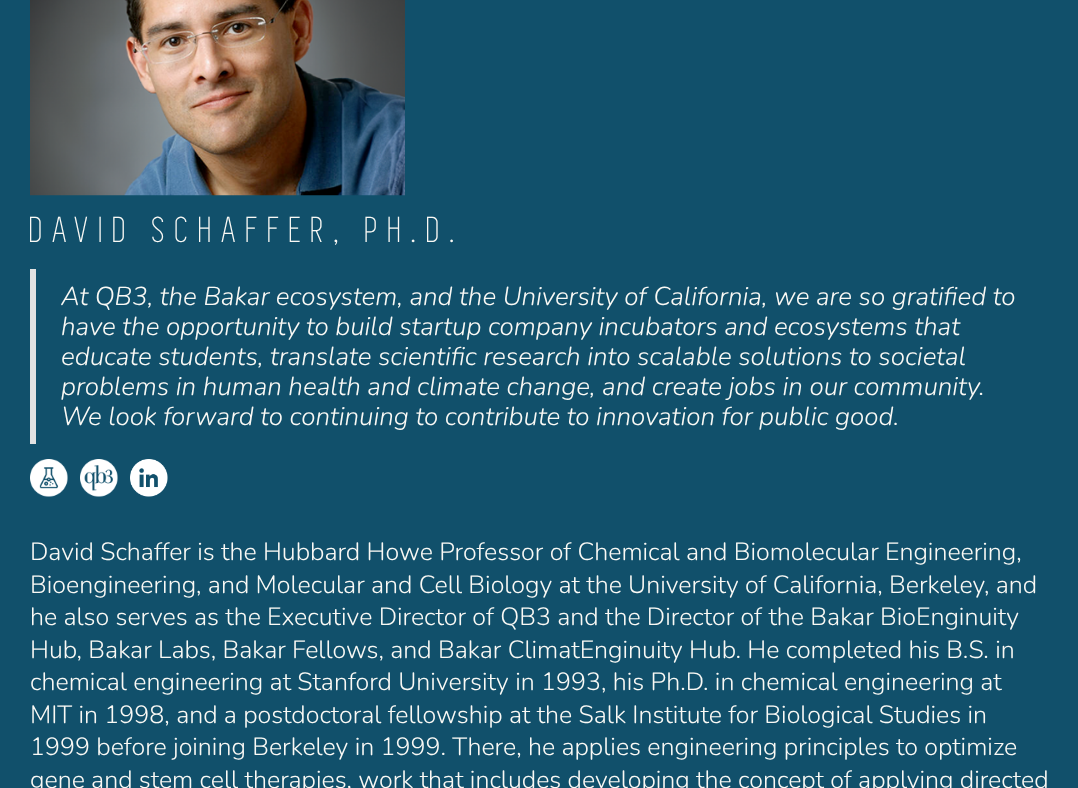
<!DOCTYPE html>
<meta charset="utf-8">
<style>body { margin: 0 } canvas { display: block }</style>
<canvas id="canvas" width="1078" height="788"></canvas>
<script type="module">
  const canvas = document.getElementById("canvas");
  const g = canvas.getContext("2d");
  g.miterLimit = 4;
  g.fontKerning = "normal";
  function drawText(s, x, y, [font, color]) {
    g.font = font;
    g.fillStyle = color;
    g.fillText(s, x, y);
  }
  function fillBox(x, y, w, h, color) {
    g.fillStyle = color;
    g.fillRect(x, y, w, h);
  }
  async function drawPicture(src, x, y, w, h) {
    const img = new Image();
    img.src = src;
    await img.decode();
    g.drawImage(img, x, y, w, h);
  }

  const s1 = ["37.5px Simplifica", "#FAF9F5"];
  const s2 = ["italic 300 26px Nunito", "#FAF9F5"];
  const s3 = ["300 25px Nunito", "#FAF9F5"];

  fillBox(0, 0, 1078, 788, "#11506B");
  await drawPicture("pic1.png", 30, 0, 375, 196);
  g.letterSpacing = "10px";
  drawText("DAVID SCHAFFER, PH.D.", 30, 242, s1);
  fillBox(30, 269, 6, 175, "#E2E2E2");
  g.letterSpacing = "0px";
  drawText("At QB3, the Bakar ecosystem, and the University of California, we are so gratified to", 61, 305, s2);
  drawText("have the opportunity to build startup company incubators and ecosystems that", 61, 335, s2);
  drawText("educate students, translate scientific research into scalable solutions to societal", 61, 365, s2);
  drawText("problems in human health and climate change, and create jobs in our community.", 61, 395, s2);
  drawText("We look forward to continuing to contribute to innovation for public good.", 61, 425, s2);
  await drawPicture("pic2.png", 30, 459, 38, 38);
  await drawPicture("pic3.png", 80, 459, 38, 38);
  await drawPicture("pic4.png", 130, 459, 38, 38);
  drawText("David Schaffer is the Hubbard Howe Professor of Chemical and Biomolecular Engineering,", 30, 560, s3);
  drawText("Bioengineering, and Molecular and Cell Biology at the University of California, Berkeley, and", 30, 593, s3);
  drawText("he also serves as the Executive Director of QB3 and the Director of the Bakar BioEnginuity", 30, 625, s3);
  drawText("Hub, Bakar Labs, Bakar Fellows, and Bakar ClimatEnginuity Hub. He completed his B.S. in", 30, 658, s3);
  drawText("chemical engineering at Stanford University in 1993, his Ph.D. in chemical engineering at", 30, 690, s3);
  drawText("MIT in 1998, and a postdoctoral fellowship at the Salk Institute for Biological Studies in", 30, 723, s3);
  drawText("1999 before joining Berkeley in 1999. There, he applies engineering principles to optimize", 30, 755, s3);
  drawText("gene and stem cell therapies, work that includes developing the concept of applying directed", 30, 788, s3);
</script>
